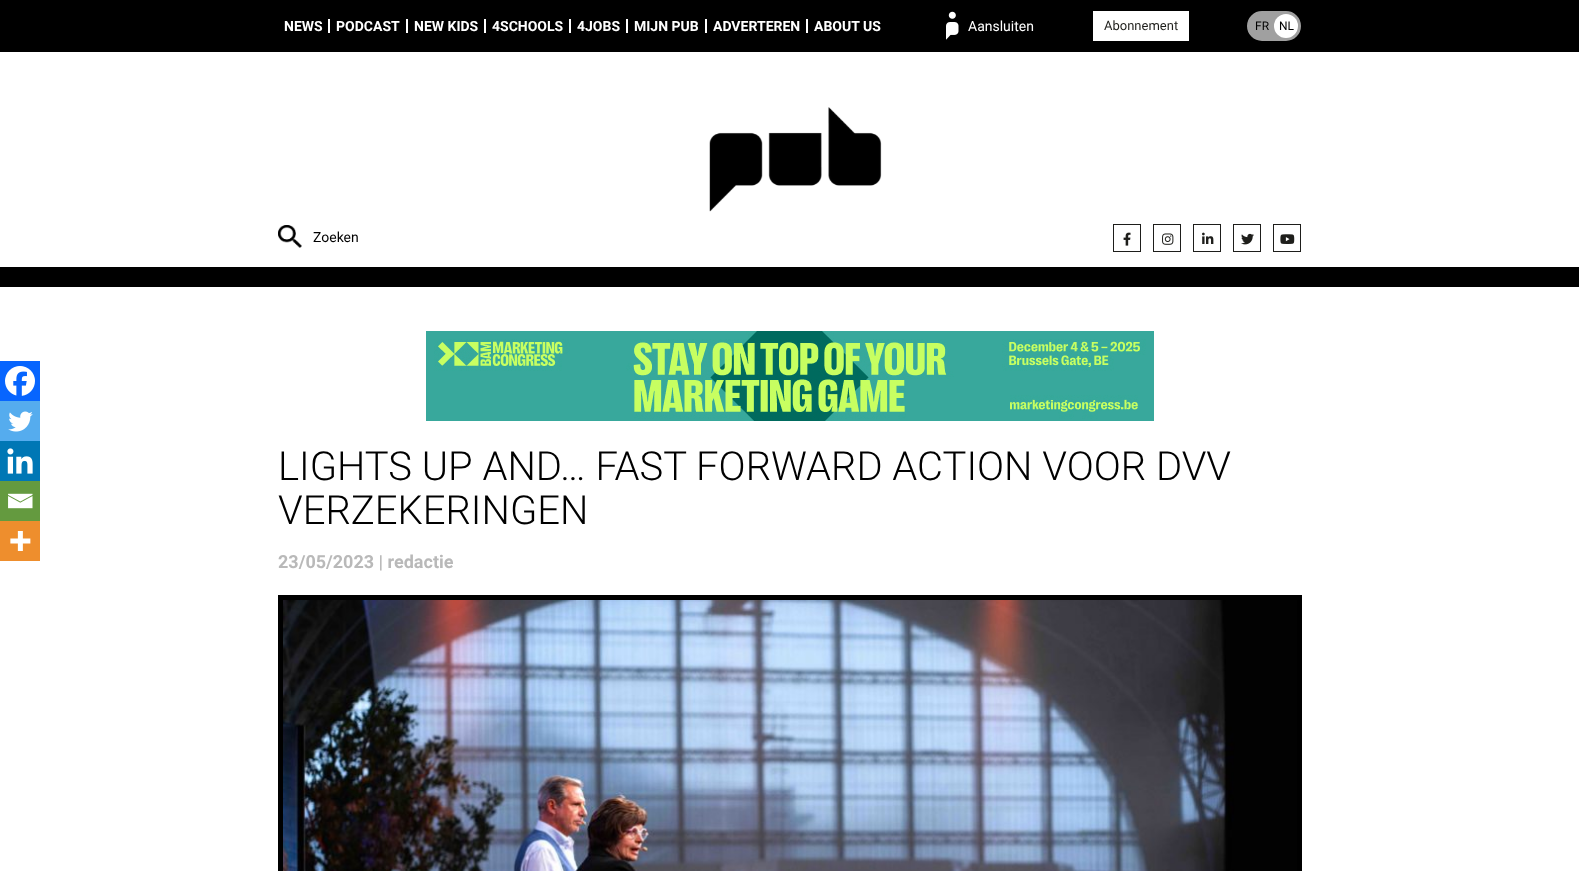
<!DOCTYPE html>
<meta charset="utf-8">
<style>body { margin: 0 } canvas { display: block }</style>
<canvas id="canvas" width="1579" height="871"></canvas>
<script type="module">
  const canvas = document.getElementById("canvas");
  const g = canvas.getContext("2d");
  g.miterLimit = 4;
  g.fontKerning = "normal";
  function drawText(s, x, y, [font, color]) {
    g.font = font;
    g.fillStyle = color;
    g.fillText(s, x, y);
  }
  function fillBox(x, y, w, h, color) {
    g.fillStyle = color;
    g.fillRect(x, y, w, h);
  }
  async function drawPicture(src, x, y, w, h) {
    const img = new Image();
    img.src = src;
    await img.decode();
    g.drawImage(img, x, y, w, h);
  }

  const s1 = ["bold 14px Roboto", "#FFFFFF"];
  const s2 = ["14px Roboto", "#FFFFFF"];
  const s3 = ["13px Roboto", "#1E1E1B"];
  const s4 = ["12px Roboto", "#000000"];
  const s5 = ["14px Roboto", "#000000"];
  const s6 = ["300 40px Roboto", "#000000"];
  const s7 = ["bold 18px Roboto", "#B9B9B9"];

  fillBox(0, 0, 1579, 871, "#FFFFFF");
  fillBox(0, 0, 1579, 52, "#000000");
  drawText("NEWS", 284, 31, s1);
  fillBox(328, 19, 2, 14, "#FFFFFF");
  drawText("PODCAST", 336, 31, s1);
  fillBox(406, 19, 2, 14, "#FFFFFF");
  drawText("NEW KIDS", 414, 31, s1);
  fillBox(484, 19, 2, 14, "#FFFFFF");
  drawText("4SCHOOLS", 492, 31, s1);
  fillBox(569, 19, 2, 14, "#FFFFFF");
  drawText("4JOBS", 577, 31, s1);
  fillBox(626, 19, 2, 14, "#FFFFFF");
  drawText("MIJN PUB", 634, 31, s1);
  fillBox(705, 19, 2, 14, "#FFFFFF");
  drawText("ADVERTEREN", 713, 31, s1);
  fillBox(806, 19, 2, 14, "#FFFFFF");
  drawText("ABOUT US", 814, 31, s1);
  await drawPicture("pic1.png", 946, 11, 13, 29);
  drawText("Aansluiten", 968, 31, s2);
  g.strokeStyle = "#FFFFFF";
  g.strokeRect(1093.5, 11.5, 95, 29);
  fillBox(1094, 12, 94, 28, "#FFFFFF");
  drawText("Abonnement", 1104, 30, s3);
  g.fillStyle = "#A0A0A0";
  g.beginPath();
  g.roundRect(1248.5, 12.5, 51, 27, 13.5);
  g.fill();
  g.strokeStyle = "#A0A0A0";
  g.lineWidth = 3;
  g.stroke();
  drawText("FR", 1255, 30, s4);
  g.fillStyle = "#FFFFFF";
  g.beginPath();
  g.arc(1286, 26, 12, 0, Math.PI * 2);
  g.fill();
  drawText("NL", 1279, 30, s4);
  fillBox(0, 267, 1579, 20, "#000000");
  await drawPicture("pic2.png", 709, 107, 173, 105);
  await drawPicture("pic3.png", 278, 225, 24, 23);
  drawText("Zoeken", 313, 242, s5);
  g.strokeStyle = "#1E1E1B";
  g.lineWidth = 1;
  g.strokeRect(1113.5, 224.5, 27, 27);
  await drawPicture("pic4.png", 1123, 232, 8, 14);
  g.strokeRect(1153.5, 224.5, 27, 27);
  await drawPicture("pic5.png", 1162, 233, 12, 12);
  g.strokeRect(1193.5, 224.5, 27, 27);
  await drawPicture("pic6.png", 1202, 232, 12, 12);
  g.strokeRect(1233.5, 224.5, 27, 27);
  await drawPicture("pic7.png", 1241, 233, 13, 12);
  g.strokeRect(1273.5, 224.5, 27, 27);
  await drawPicture("pic8.png", 1280, 234, 15, 10);
  fillBox(0, 361, 40, 40, "#0765FE");
  await drawPicture("pic9.png", 5, 366, 30, 30);
  fillBox(0, 401, 40, 40, "#55ACEE");
  await drawPicture("pic10.png", 8, 411, 25, 21);
  fillBox(0, 441, 40, 40, "#0077B5");
  await drawPicture("pic11.png", 7, 448, 26, 26);
  fillBox(0, 481, 40, 40, "#649A3F");
  await drawPicture("pic12.png", 8, 493, 25, 16);
  fillBox(0, 521, 40, 40, "#EE8E2D");
  await drawPicture("pic13.png", 10, 531, 21, 20);
  await drawPicture("pic14.png", 426, 331, 728, 90);
  drawText("LIGHTS UP AND… FAST FORWARD ACTION VOOR DVV", 278, 480, s6);
  drawText("VERZEKERINGEN", 278, 524, s6);
  drawText("23/05/2023 | redactie", 278, 568, s7);
  g.strokeStyle = "#000000";
  g.lineWidth = 5;
  g.strokeRect(280.5, 597.5, 1019, 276);
  await drawPicture("pic15.png", 283, 600, 1014, 271);
</script>
